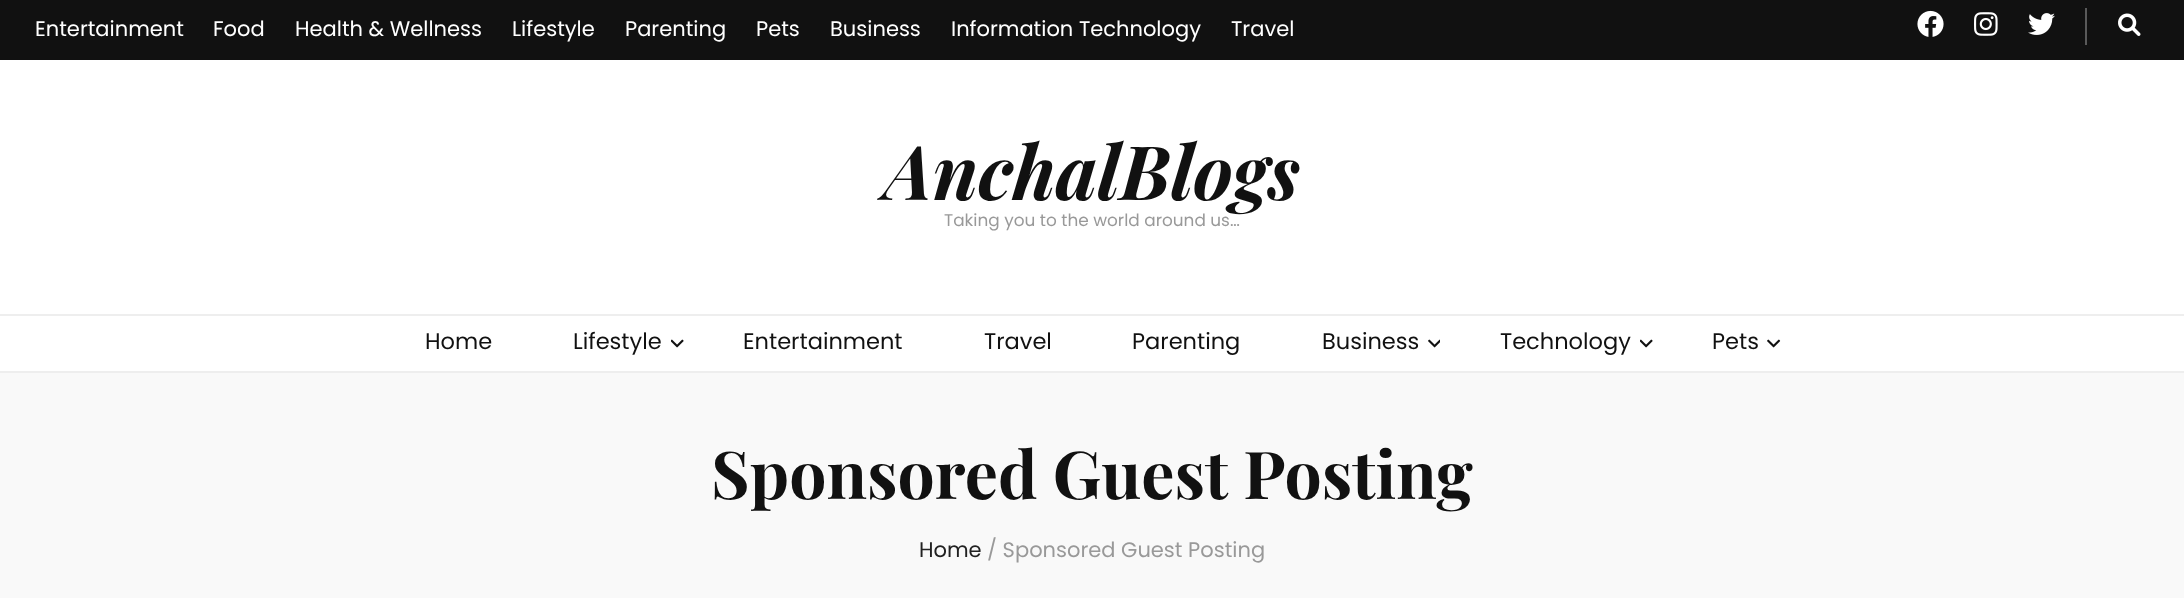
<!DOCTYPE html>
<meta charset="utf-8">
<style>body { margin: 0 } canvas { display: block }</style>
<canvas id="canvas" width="2184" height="598"></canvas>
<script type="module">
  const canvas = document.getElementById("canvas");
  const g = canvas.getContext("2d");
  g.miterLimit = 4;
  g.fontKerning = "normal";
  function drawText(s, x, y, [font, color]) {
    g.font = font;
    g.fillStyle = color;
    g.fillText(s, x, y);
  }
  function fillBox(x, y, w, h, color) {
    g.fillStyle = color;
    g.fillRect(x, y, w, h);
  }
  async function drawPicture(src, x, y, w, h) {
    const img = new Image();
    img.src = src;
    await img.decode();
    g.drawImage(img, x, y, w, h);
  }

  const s1 = ["21px Poppins", "#FFFFFF"];
  const s2 = ["italic bold 75px Playfair Display", "#111111"];
  const s3 = ["16.9px Poppins", "#999999"];
  const s4 = ["22.5px Poppins", "#111111"];
  const s5 = ["bold 66px Playfair Display", "#111111"];
  const s6 = ["21px Poppins", "#222222"];
  const s7 = ["21px Poppins", "#999999"];

  fillBox(0, 0, 2184, 598, "#FFFFFF");
  fillBox(0, 0, 2184, 60, "#111111");
  drawText("Entertainment", 35, 36, s1);
  drawText("Food", 213, 36, s1);
  drawText("Health & Wellness", 295, 36, s1);
  drawText("Lifestyle", 512, 36, s1);
  drawText("Parenting", 625, 36, s1);
  drawText("Pets", 756, 36, s1);
  drawText("Business", 830, 36, s1);
  drawText("Information Technology", 951, 36, s1);
  drawText("Travel", 1231, 36, s1);
  fillBox(2085, 8, 2, 37, "#595959");
  await drawPicture("pic1.png", 1917, 10, 27, 27);
  await drawPicture("pic2.png", 1974, 12, 24, 24);
  await drawPicture("pic3.png", 2028, 13, 27, 22);
  await drawPicture("pic4.png", 2118, 13, 23, 23);
  drawText("AnchalBlogs", 884, 200, s2);
  drawText("Taking you to the world around us…", 944, 226, s3);
  fillBox(0, 314, 2184, 2, "#EEEEEE");
  fillBox(0, 371, 2184, 2, "#EEEEEE");
  drawText("Home", 425, 349, s4);
  drawText("Lifestyle", 573, 349, s4);
  await drawPicture("pic5.png", 671, 339, 13, 9);
  drawText("Entertainment", 743, 349, s4);
  drawText("Travel", 984, 349, s4);
  drawText("Parenting", 1132, 349, s4);
  drawText("Business", 1322, 349, s4);
  await drawPicture("pic6.png", 1428, 339, 12, 9);
  drawText("Technology", 1500, 349, s4);
  await drawPicture("pic5.png", 1640, 339, 13, 9);
  drawText("Pets", 1712, 349, s4);
  await drawPicture("pic7.png", 1767, 339, 14, 9);
  fillBox(0, 373, 2184, 225, "#F9F9F9");
  drawText("Sponsored Guest Posting", 711, 499, s5);
  drawText("Home", 919, 557, s6);
  drawText("/ Sponsored Guest Posting", 987, 557, s7);
</script>
